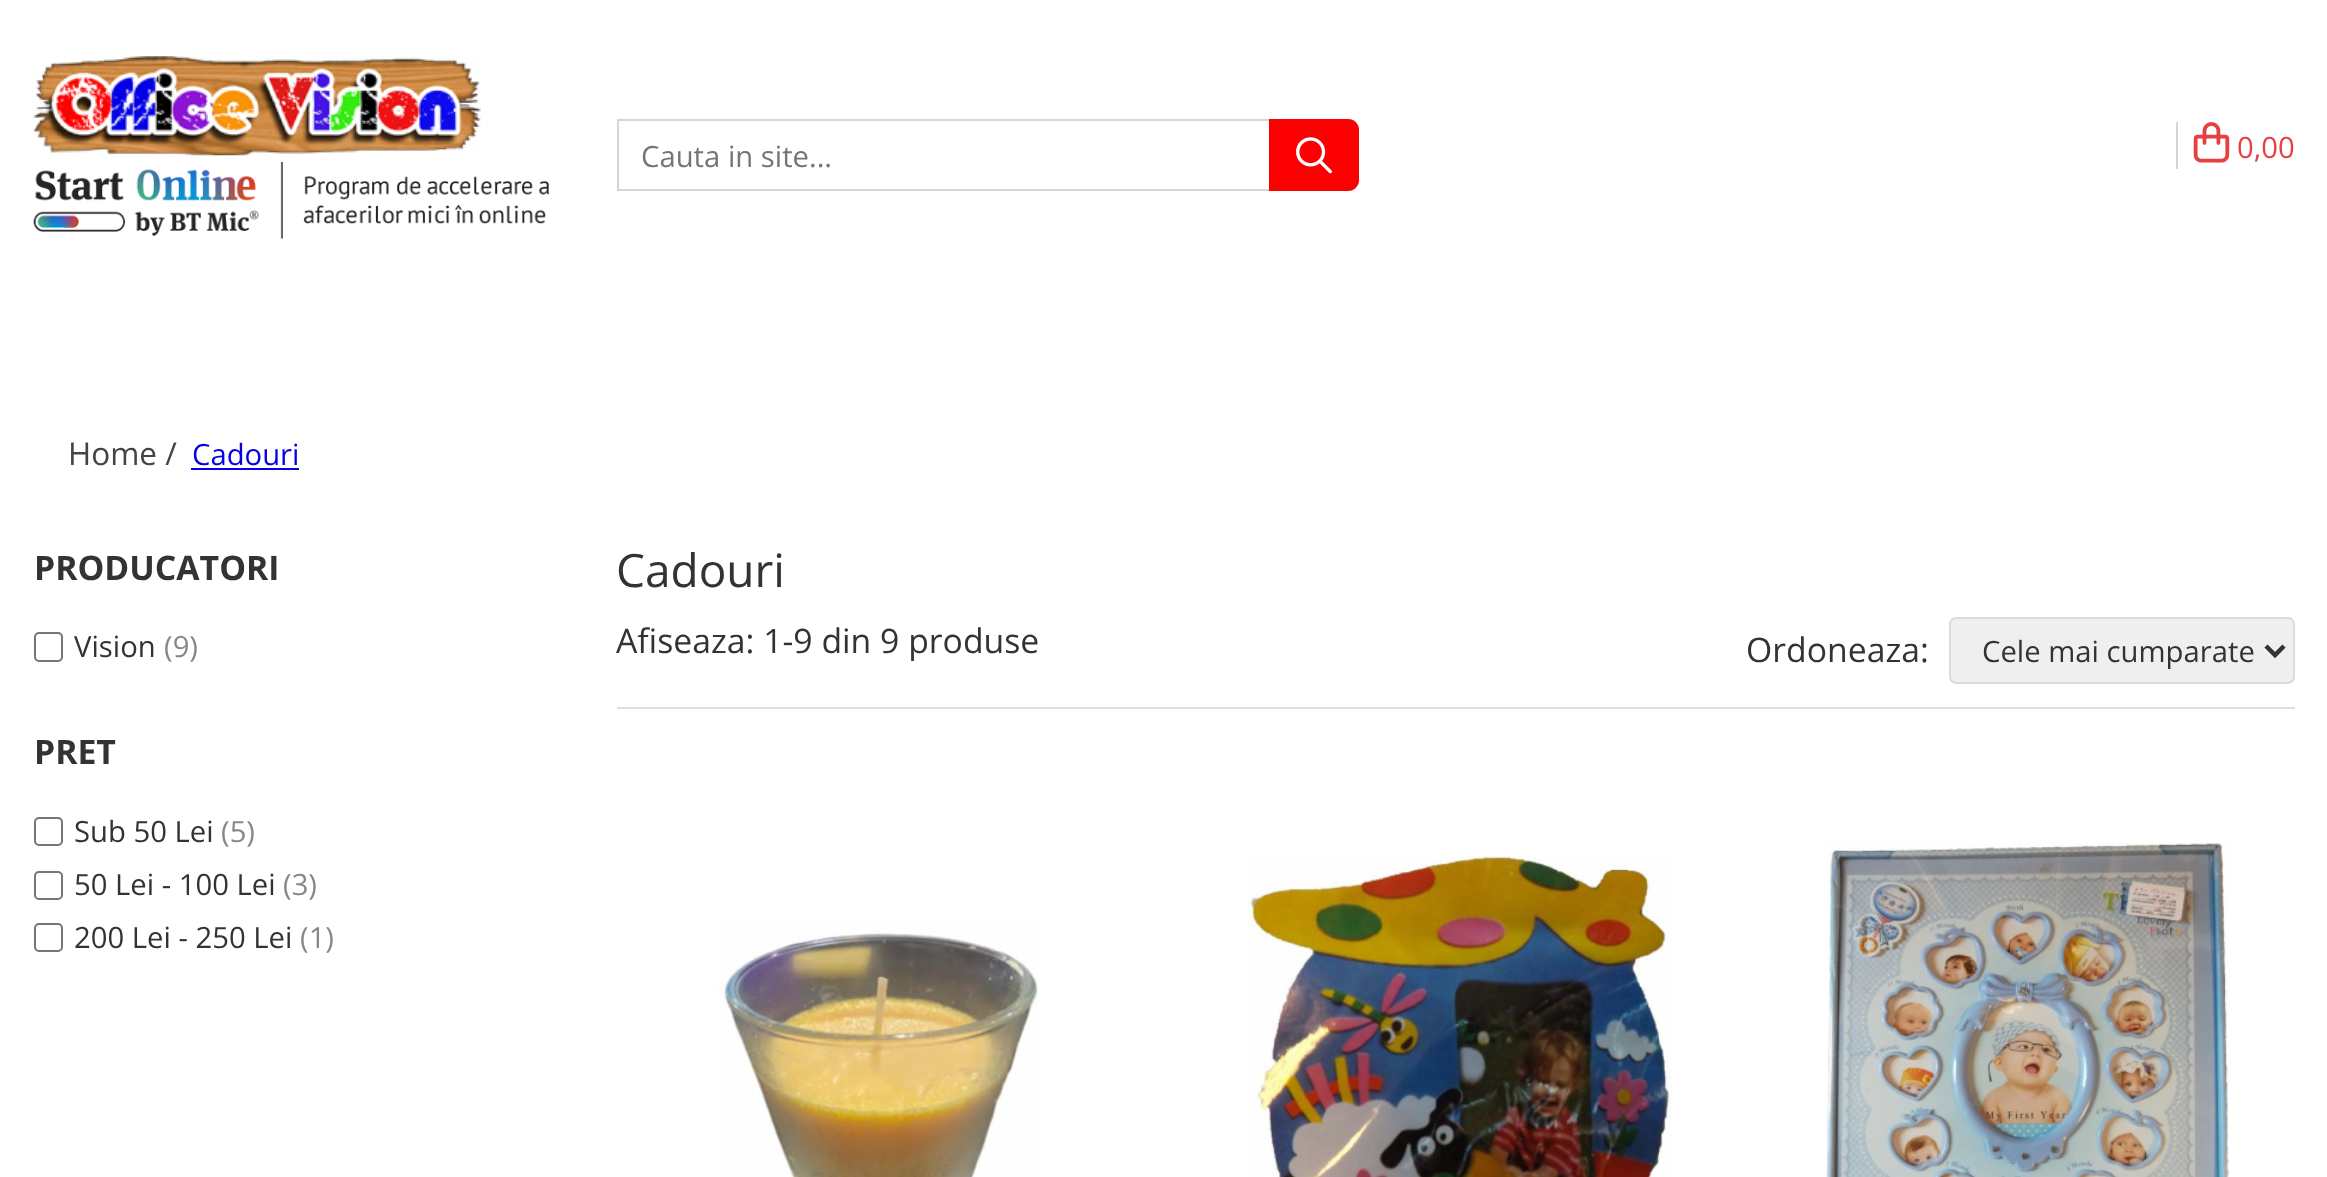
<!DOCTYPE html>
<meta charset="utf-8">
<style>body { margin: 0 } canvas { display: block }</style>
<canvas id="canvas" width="2327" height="1177"></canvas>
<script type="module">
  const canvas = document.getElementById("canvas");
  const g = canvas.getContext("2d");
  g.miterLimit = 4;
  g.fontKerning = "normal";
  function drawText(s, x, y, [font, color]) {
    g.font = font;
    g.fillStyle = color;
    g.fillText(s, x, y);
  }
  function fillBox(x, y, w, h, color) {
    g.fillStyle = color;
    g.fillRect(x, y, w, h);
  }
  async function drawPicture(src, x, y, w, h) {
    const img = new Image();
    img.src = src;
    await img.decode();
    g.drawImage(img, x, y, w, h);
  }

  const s1 = ["29.25px Open Sans", "#757575"];
  const s2 = ["29.25px Open Sans", "#E64040"];
  const s3 = ["31.5px Open Sans", "#444444"];
  const s4 = ["29.25px Open Sans", "#0500E6"];
  const s5 = ["bold 33.75px Open Sans", "#333333"];
  const s6 = ["29.25px Open Sans", "#333333"];
  const s7 = ["29.25px Open Sans", "#888888"];
  const s8 = ["46px Open Sans", "#333333"];
  const s9 = ["33.75px Open Sans", "#333333"];

  fillBox(0, 0, 2327, 1177, "#FFFFFF");
  await drawPicture("pic1.png", 33, 56, 448, 100);
  await drawPicture("pic2.png", 33, 162, 516, 77);
  g.beginPath();
  g.roundRect(618, 120, 740, 70, [0, 10, 10, 0]);
  g.strokeStyle = "#D5D5D5";
  g.lineWidth = 2;
  g.stroke();
  drawText("Cauta in site...", 641, 167, s1);
  g.fillStyle = "#FA0000";
  g.beginPath();
  g.roundRect(1269, 119, 90, 72, [0, 11, 11, 0]);
  g.fill();
  await drawPicture("pic3.png", 1296, 137, 36, 37);
  fillBox(2176, 122, 2, 47, "#D5D5D5");
  await drawPicture("pic4.png", 2193, 122, 37, 41);
  drawText("0,00", 2237, 158, s2);
  drawText("Home /", 68, 465, s3);
  drawText("Cadouri", 192, 465, s4);
  fillBox(191, 468, 108, 2, "#0500E6");
  drawText("PRODUCATORI", 34, 580, s5);
  g.beginPath();
  g.roundRect(35, 633, 27, 28, 4);
  g.strokeStyle = "#767676";
  g.stroke();
  drawText("Vision", 74, 657, s6);
  drawText("(9)", 164, 657, s7);
  drawText("PRET", 34, 764, s5);
  g.beginPath();
  g.roundRect(35, 818, 27, 27, 4);
  g.stroke();
  drawText("Sub 50 Lei", 74, 842, s6);
  drawText("(5)", 221, 842, s7);
  g.beginPath();
  g.roundRect(35, 872, 27, 27, 4);
  g.stroke();
  drawText("50 Lei - 100 Lei", 74, 895, s6);
  drawText("(3)", 283, 895, s7);
  g.beginPath();
  g.roundRect(35, 924, 27, 27, 4);
  g.stroke();
  drawText("200 Lei - 250 Lei", 74, 948, s6);
  drawText("(1)", 300, 948, s7);
  drawText("Cadouri", 616, 587, s8);
  fillBox(617, 707, 1678, 2, "#DFDFDF");
  drawText("Afiseaza: 1-9 din 9 produse", 616, 653, s9);
  drawText("Ordoneaza:", 1746, 662, s9);
  g.fillStyle = "#EFEFEF";
  g.beginPath();
  g.roundRect(1950, 618, 344, 65, 6);
  g.fill();
  g.strokeStyle = "#DBDBDB";
  g.stroke();
  g.beginPath();
  g.moveTo(2266, 646);
  g.lineTo(2275, 655);
  g.lineTo(2284, 646);
  g.strokeStyle = "#333333";
  g.lineWidth = 4.5;
  g.stroke();
  drawText("Cele mai cumparate", 1982, 662, s6);
  await drawPicture("pic5.png", 717, 922, 321, 255);
  await drawPicture("pic6.png", 1246, 856, 427, 321);
  await drawPicture("pic7.png", 1826, 843, 403, 334);
</script>
